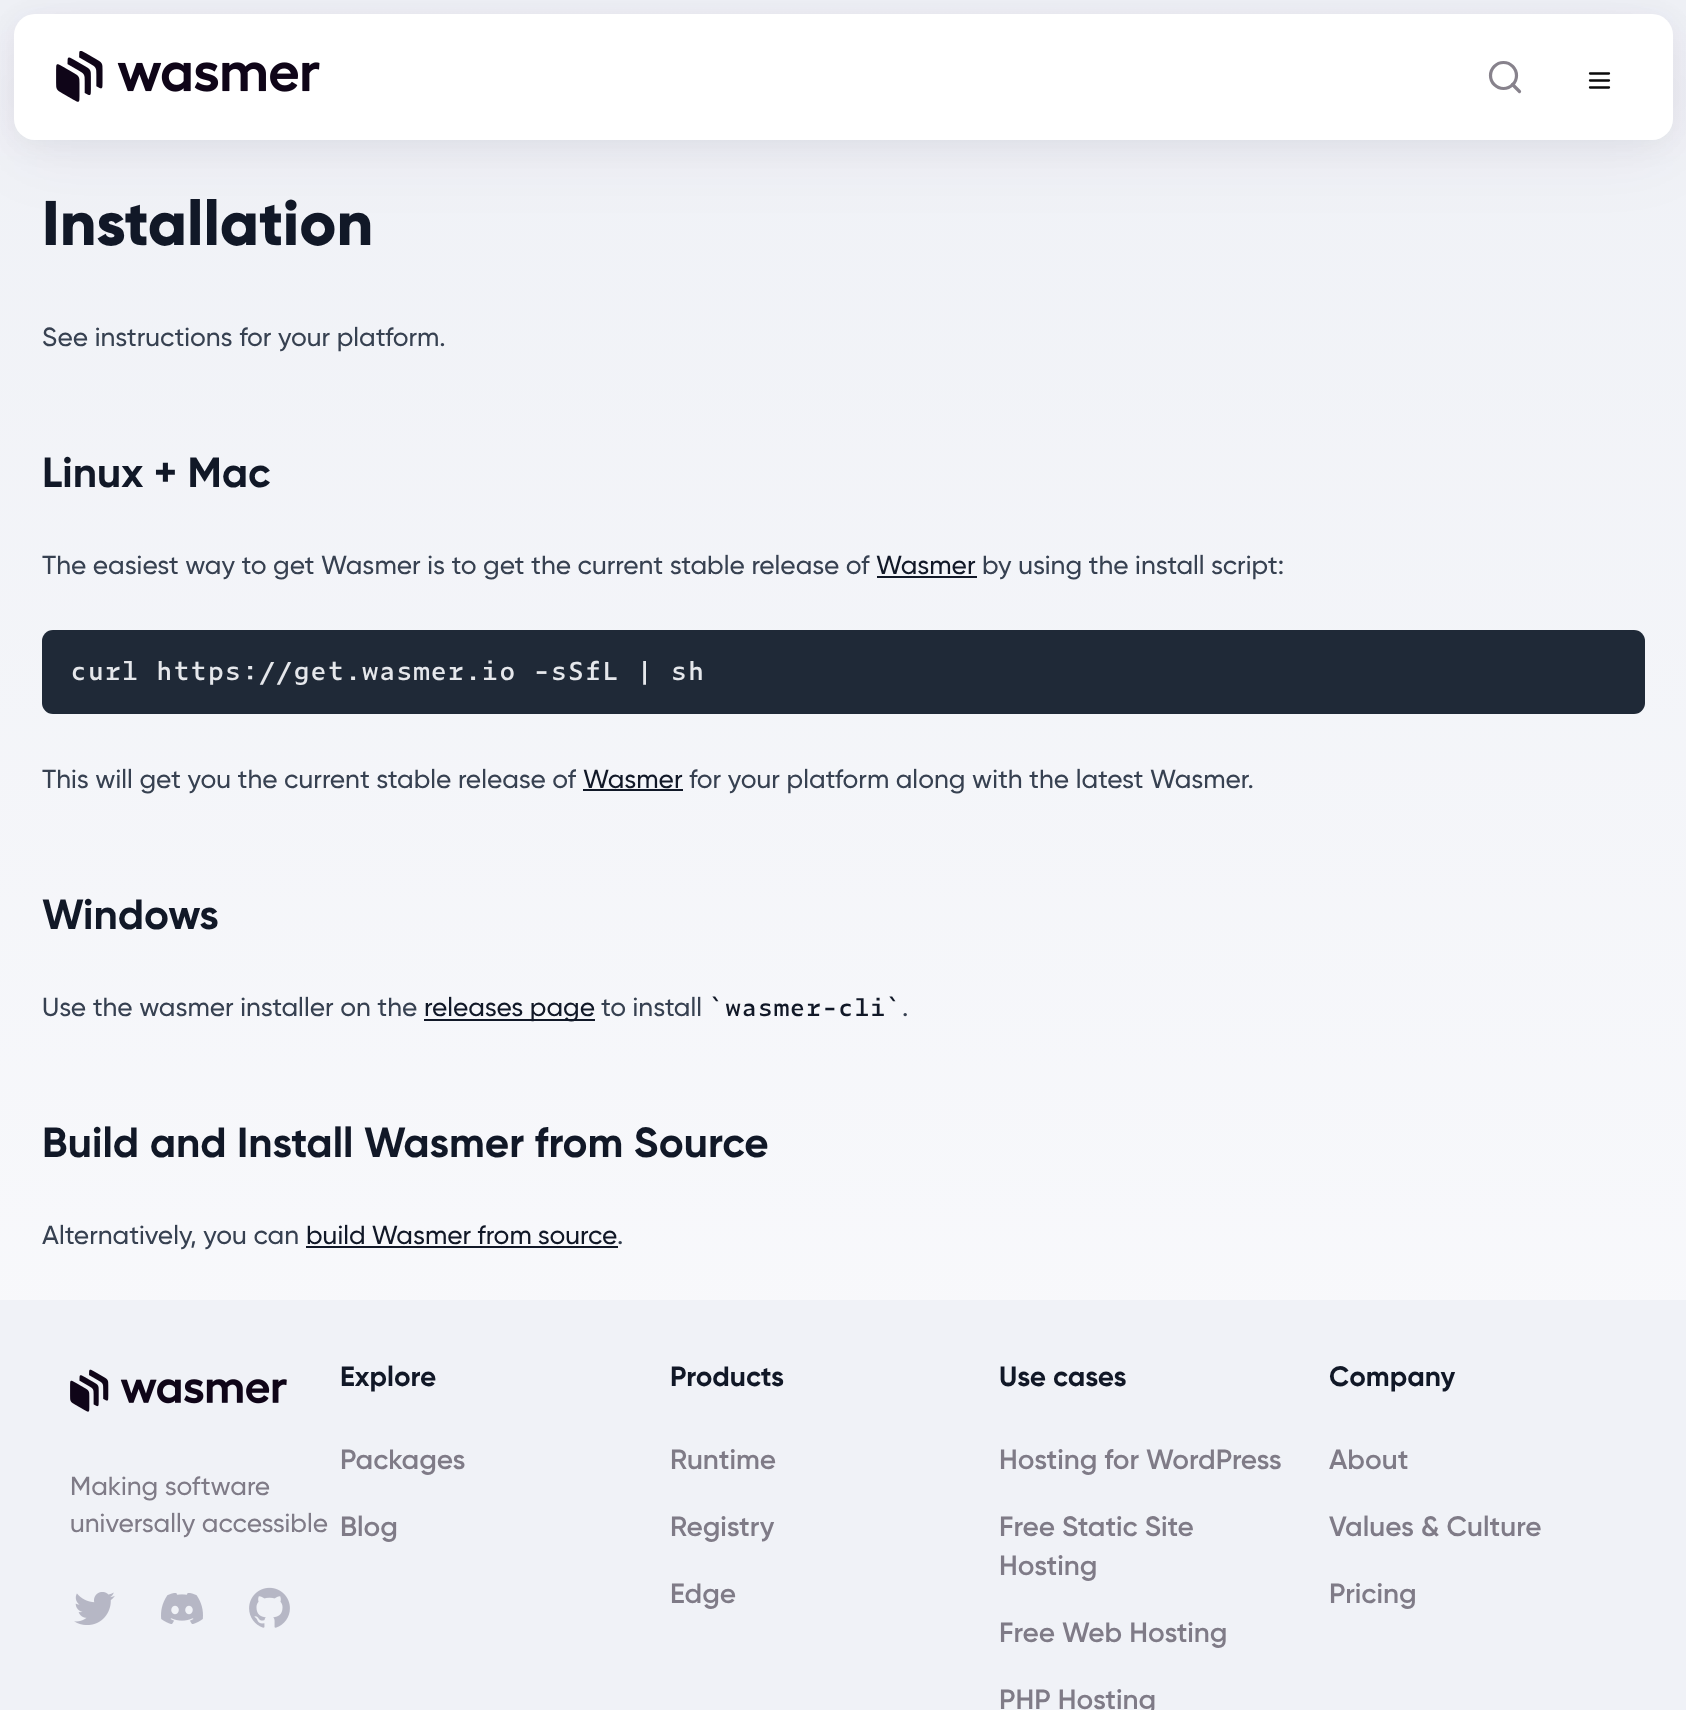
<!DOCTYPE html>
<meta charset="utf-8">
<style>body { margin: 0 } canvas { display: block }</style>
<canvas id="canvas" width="1686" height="1710"></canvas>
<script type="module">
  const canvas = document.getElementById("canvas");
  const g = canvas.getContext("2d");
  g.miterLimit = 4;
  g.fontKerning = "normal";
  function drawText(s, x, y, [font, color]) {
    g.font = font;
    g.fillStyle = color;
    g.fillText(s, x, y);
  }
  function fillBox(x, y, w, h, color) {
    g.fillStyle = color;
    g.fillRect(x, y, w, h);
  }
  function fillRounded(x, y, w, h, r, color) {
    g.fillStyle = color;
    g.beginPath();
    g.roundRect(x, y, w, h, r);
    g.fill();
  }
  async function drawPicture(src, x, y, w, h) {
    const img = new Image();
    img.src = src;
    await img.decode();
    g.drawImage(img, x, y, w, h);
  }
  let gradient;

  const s1 = ["800 63px Gilroy", "#111827"];
  const s2 = ["500 26.25px Gilroy", "#374151"];
  const s3 = ["bold 42px Gilroy", "#111827"];
  const s4 = ["500 26.25px Gilroy", "#111827"];
  const s5 = ["600 24.5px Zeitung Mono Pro", "#E5E7EB"];
  const s6 = ["600 23px Zeitung Mono Pro", "#111827"];
  const s7 = ["500 26.25px Gilroy", "#7F7B87"];
  const s8 = ["bold 28px Gilroy", "#111827"];
  const s9 = ["600 28px Gilroy", "#7F7B87"];

  fillBox(0, 0, 1686, 1710, "#FFFFFF");
  gradient = g.createLinearGradient(843, 0, 844, 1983);
  gradient.addColorStop(0, "#EFF1F6");
  gradient.addColorStop(1, "#FCFCFE");
  g.fillStyle = gradient;
  g.fillRect(0, 0, 1686, 1300);
  g.fillStyle = "rgba(35, 16, 68, 0.05)";
  g.filter = "blur(34px)";
  g.beginPath();
  g.roundRect(14, 30, 1659, 126, 21);
  g.fill();
  g.filter = "none";
  g.filter = "blur(14px)";
  g.beginPath();
  g.roundRect(14, 19, 1659, 126, 21);
  g.fill();
  g.filter = "none";
  fillRounded(14, 14, 1659, 126, 21, "#FFFFFF");
  await drawPicture("pic1.png", 56, 51, 264, 51);
  g.beginPath();
  g.moveTo(1519.5, 91.5);
  g.lineTo(1512.5, 84.5);
  g.strokeStyle = "#87828C";
  g.lineWidth = 3.2;
  g.lineCap = "round";
  g.lineJoin = "round";
  g.stroke();
  g.beginPath();
  g.arc(1503.5, 75.5, 13, 0, Math.PI * 2);
  g.stroke();
  g.beginPath();
  g.moveTo(1590, 80.5);
  g.lineTo(1609, 80.5);
  g.moveTo(1590, 87.5);
  g.lineTo(1609, 87.5);
  g.moveTo(1590, 73.5);
  g.lineTo(1609, 73.5);
  g.strokeStyle = "#0A0A0A";
  g.lineWidth = 2.3;
  g.stroke();
  drawText("Installation", 42, 245, s1);
  drawText("See instructions for your platform.", 42, 346, s2);
  drawText("Linux + Mac", 42, 487, s3);
  drawText("The easiest way to get Wasmer is to get the current stable release of", 42, 574, s2);
  drawText("Wasmer", 876, 574, s4);
  fillBox(877, 576, 100, 2, "#111827");
  drawText("by using the install script:", 982, 574, s2);
  fillRounded(42, 630, 1603, 84, 11, "#1F2937");
  drawText("curl https://get.wasmer.io -sSfL | sh", 70, 680, s5);
  drawText("This will get you the current stable release of", 42, 788, s2);
  drawText("Wasmer", 583, 788, s4);
  fillBox(583, 789, 100, 2, "#111827");
  drawText("for your platform along with the latest Wasmer.", 689, 788, s2);
  drawText("Windows", 42, 929, s3);
  drawText("Use the wasmer installer on the", 42, 1016, s2);
  fillBox(424, 1019, 171, 2, "#111827");
  drawText("releases page", 424, 1016, s4);
  drawText("to install", 601, 1016, s2);
  drawText("`wasmer-cli`", 709, 1016, s6);
  drawText(".", 902, 1016, s2);
  drawText("Build and Install Wasmer from Source", 42, 1157, s3);
  drawText("Alternatively, you can", 42, 1244, s2);
  g.wordSpacing = "-0.5px";
  drawText("build Wasmer from source", 306, 1244, s4);
  fillBox(306, 1246, 312, 2, "#111827");
  g.wordSpacing = "0px";
  drawText(".", 617, 1244, s2);
  fillBox(0, 1300, 1686, 410, "#F0F2F7");
  await drawPicture("pic2.png", 70, 1369, 217, 43);
  drawText("Making software", 70, 1495, s7);
  drawText("universally accessible", 70, 1532, s7);
  await drawPicture("pic3.png", 74, 1592, 41, 33);
  await drawPicture("pic4.png", 161, 1593, 42, 31);
  await drawPicture("pic5.png", 249, 1587, 41, 41);
  drawText("Explore", 340, 1386, s8);
  drawText("Packages", 340, 1469, s9);
  drawText("Blog", 340, 1536, s9);
  drawText("Products", 670, 1386, s8);
  drawText("Runtime", 670, 1469, s9);
  drawText("Registry", 670, 1536, s9);
  drawText("Edge", 670, 1603, s9);
  drawText("Use cases", 999, 1386, s8);
  drawText("Hosting for WordPress", 999, 1469, s9);
  drawText("Free Static Site", 999, 1536, s9);
  drawText("Hosting", 999, 1575, s9);
  drawText("Free Web Hosting", 999, 1642, s9);
  drawText("PHP Hosting", 999, 1709, s9);
  drawText("Company", 1329, 1386, s8);
  drawText("About", 1329, 1469, s9);
  drawText("Values & Culture", 1329, 1536, s9);
  drawText("Pricing", 1329, 1603, s9);
</script>
